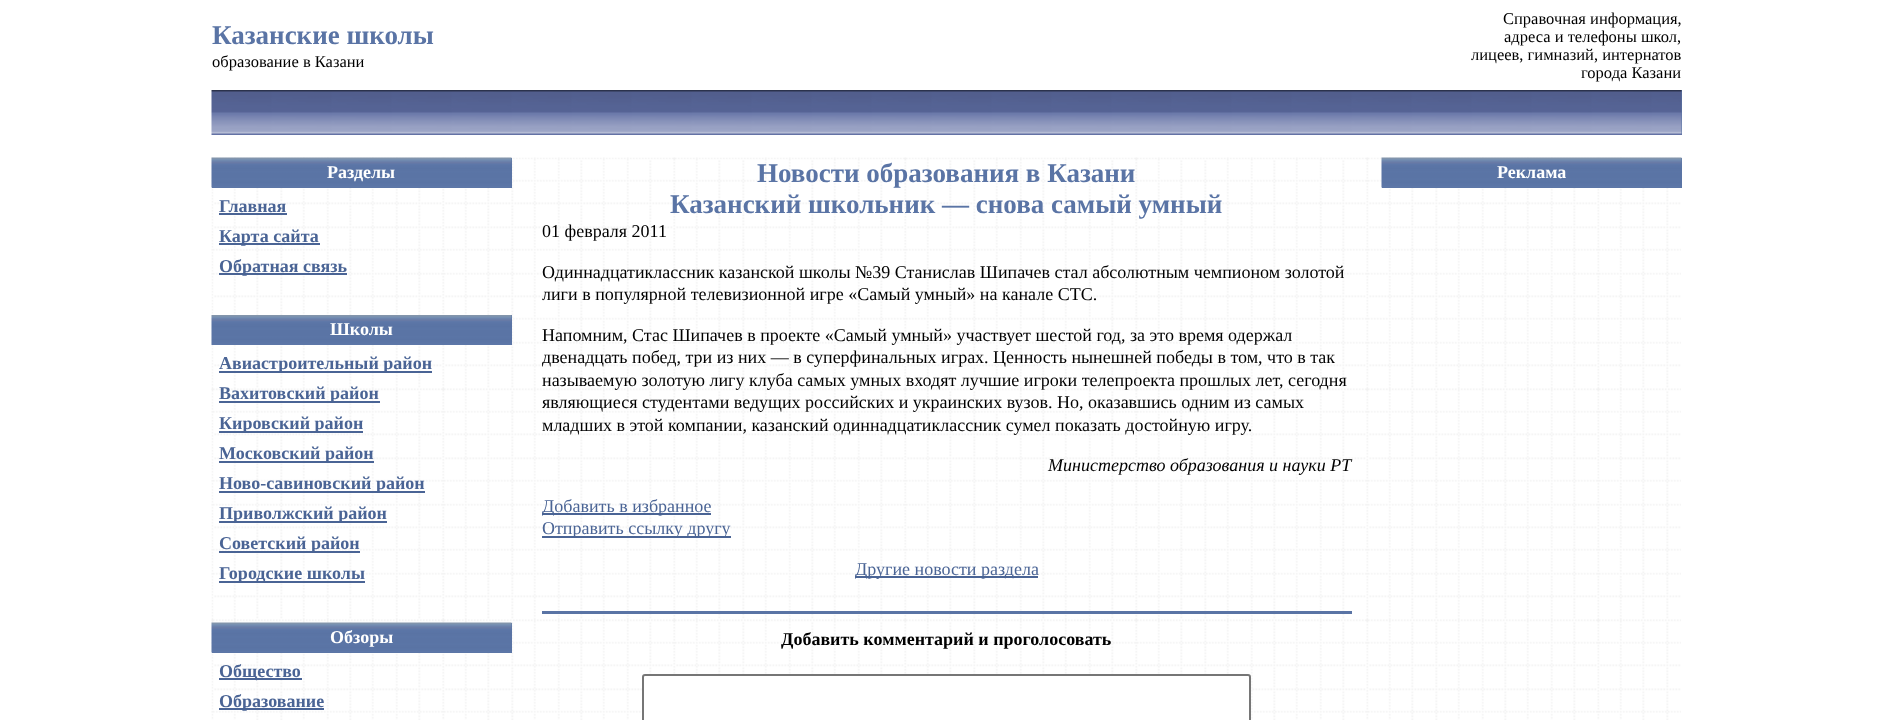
<!DOCTYPE html>
<meta charset="utf-8">
<style>body { margin: 0 } canvas { display: block }</style>
<canvas id="canvas" width="1892" height="720"></canvas>
<script type="module">
  const canvas = document.getElementById("canvas");
  const g = canvas.getContext("2d");
  g.miterLimit = 4;
  g.fontKerning = "normal";
  function drawText(s, x, y, [font, color]) {
    g.font = font;
    g.fillStyle = color;
    g.fillText(s, x, y);
  }
  function fillBox(x, y, w, h, color) {
    g.fillStyle = color;
    g.fillRect(x, y, w, h);
  }
  async function drawPicture(src, x, y, w, h) {
    const img = new Image();
    img.src = src;
    await img.decode();
    g.drawImage(img, x, y, w, h);
  }

  const s1 = ["bold 27px Liberation Serif", "#5A74A5"];
  const s2 = ["16.5px Liberation Serif", "#000000"];
  const s3 = ["bold 18px Liberation Serif", "#FFFFFF"];
  const s4 = ["bold 18px Liberation Serif", "#4A6495"];
  const s5 = ["18px Liberation Serif", "#000000"];
  const s6 = ["italic 18px Liberation Serif", "#000000"];
  const s7 = ["18px Liberation Serif", "#4A6495"];
  const s8 = ["bold 18px Liberation Serif", "#000000"];

  fillBox(0, 0, 1892, 720, "#FFFFFF");
  drawText("Казанские школы", 212, 44, s1);
  drawText("образование в Казани", 212, 67, s2);
  drawText("Справочная информация,", 1503, 24, s2);
  drawText("адреса и телефоны школ,", 1504, 42, s2);
  drawText("лицеев, гимназий, интернатов", 1471, 60, s2);
  drawText("города Казани", 1581, 78, s2);
  fillBox(1681, 90, 1, 45, "#5A74A5");
  await drawPicture("pic1.png", 211, 90, 1471, 45);
  await drawPicture("pic2.png", 211, 157, 1470, 563);
  fillBox(212, 158, 300, 30, "#5A74A5");
  await drawPicture("pic3.png", 211, 157, 301, 31);
  drawText("Разделы", 327, 178, s3);
  drawText("Главная", 219, 212, s4);
  fillBox(219, 213, 68, 2, "#4A6495");
  fillBox(219, 243, 101, 2, "#4A6495");
  drawText("Карта сайта", 219, 242, s4);
  fillBox(219, 273, 128, 2, "#4A6495");
  drawText("Обратная связь", 219, 272, s4);
  fillBox(511, 315, 1, 30, "#5A74A5");
  await drawPicture("pic4.png", 211, 315, 301, 30);
  drawText("Школы", 330, 335, s3);
  fillBox(219, 371, 213, 2, "#4A6495");
  drawText("Авиастроительный район", 219, 369, s4);
  fillBox(219, 401, 161, 2, "#4A6495");
  drawText("Вахитовский район", 219, 399, s4);
  fillBox(219, 431, 144, 2, "#4A6495");
  drawText("Кировский район", 219, 429, s4);
  fillBox(219, 461, 155, 2, "#4A6495");
  drawText("Московский район", 219, 459, s4);
  fillBox(219, 491, 206, 2, "#4A6495");
  drawText("Ново-савиновский район", 219, 489, s4);
  fillBox(219, 521, 168, 2, "#4A6495");
  drawText("Приволжский район", 219, 519, s4);
  fillBox(219, 551, 141, 2, "#4A6495");
  drawText("Советский район", 219, 549, s4);
  fillBox(219, 581, 146, 2, "#4A6495");
  drawText("Городские школы", 219, 579, s4);
  fillBox(212, 623, 300, 30, "#5A74A5");
  await drawPicture("pic5.png", 211, 622, 301, 31);
  drawText("Обзоры", 330, 643, s3);
  fillBox(219, 678, 83, 2, "#4A6495");
  drawText("Общество", 219, 677, s4);
  fillBox(219, 708, 105, 2, "#4A6495");
  drawText("Образование", 219, 707, s4);
  drawText("Новости образования в Казани", 757, 182, s1);
  drawText("Казанский школьник — снова самый умный", 670, 213, s1);
  drawText("01 февраля 2011", 542, 237, s5);
  drawText("Одиннадцатиклассник казанской школы №39 Станислав Шипачев стал абсолютным чемпионом золотой", 542, 278, s5);
  drawText("лиги в популярной телевизионной игре «Самый умный» на канале СТС.", 542, 300, s5);
  drawText("Напомним, Стас Шипачев в проекте «Самый умный» участвует шестой год, за это время одержал", 542, 341, s5);
  drawText("двенадцать побед, три из них — в суперфинальных играх. Ценность нынешней победы в том, что в так", 542, 363, s5);
  drawText("называемую золотую лигу клуба самых умных входят лучшие игроки телепроекта прошлых лет, сегодня", 542, 386, s5);
  drawText("являющиеся студентами ведущих российских и украинских вузов. Но, оказавшись одним из самых", 542, 408, s5);
  drawText("младших в этой компании, казанский одиннадцатиклассник сумел показать достойную игру.", 542, 431, s5);
  drawText("Министерство образования и науки РТ", 1048, 471, s6);
  fillBox(542, 513, 169, 2, "#4A6495");
  drawText("Добавить в избранное", 542, 512, s7);
  fillBox(542, 536, 189, 2, "#4A6495");
  drawText("Отправить ссылку другу", 542, 534, s7);
  fillBox(855, 576, 183, 2, "#4A6495");
  drawText("Другие новости раздела", 855, 575, s7);
  fillBox(542, 611, 810, 3, "#5A74A5");
  drawText("Добавить комментарий и проголосовать", 781, 645, s8);
  g.fillStyle = "#FFFFFF";
  g.beginPath();
  g.roundRect(643, 675, 607, 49, 2);
  g.fill();
  g.strokeStyle = "#767676";
  g.lineWidth = 2;
  g.stroke();
  fillBox(1382, 158, 300, 30, "#5A74A5");
  await drawPicture("pic6.png", 1381, 157, 301, 31);
  drawText("Реклама", 1497, 178, s3);
</script>
